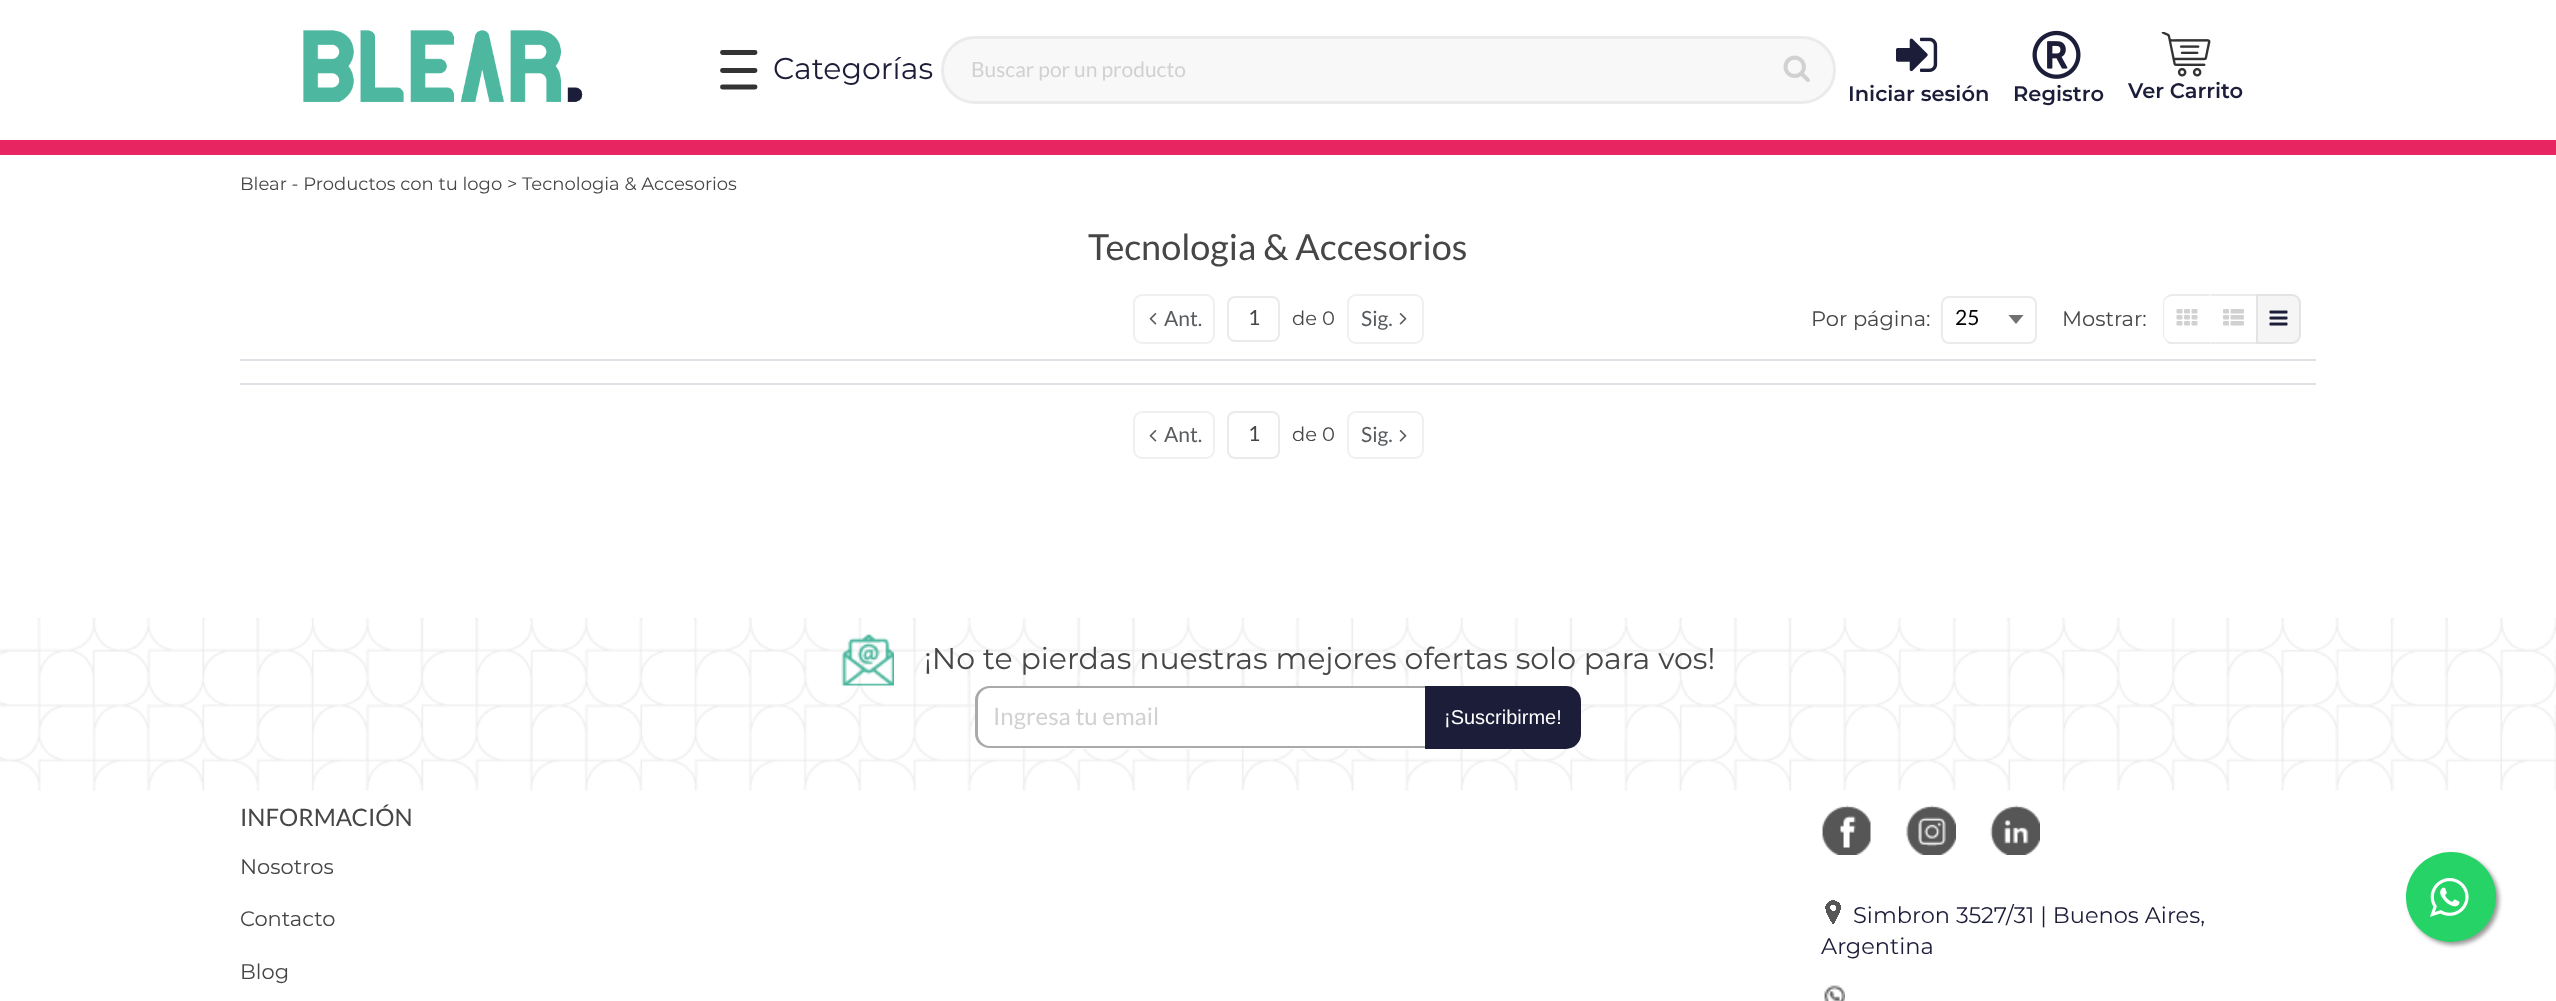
<!DOCTYPE html>
<meta charset="utf-8">
<style>body { margin: 0 } canvas { display: block }</style>
<canvas id="canvas" width="2556" height="1001"></canvas>
<script type="module">
  const canvas = document.getElementById("canvas");
  const g = canvas.getContext("2d");
  g.miterLimit = 4;
  g.fontKerning = "normal";
  function drawText(s, x, y, [font, color]) {
    g.font = font;
    g.fillStyle = color;
    g.fillText(s, x, y);
  }
  function fillBox(x, y, w, h, color) {
    g.fillStyle = color;
    g.fillRect(x, y, w, h);
  }
  async function drawPicture(src, x, y, w, h) {
    const img = new Image();
    img.src = src;
    await img.decode();
    g.drawImage(img, x, y, w, h);
  }

  const s1 = ["30px Montserrat", "#1C1D39"];
  const s2 = ["21px Lato", "#D1D1D1"];
  const s3 = ["600 21px Montserrat", "#1C1D39"];
  const s4 = ["18px Montserrat", "#464646"];
  const s5 = ["36px Lato", "#464646"];
  const s6 = ["21px Lato", "#595C5F"];
  const s7 = ["21px Lato", "#464646"];
  const s8 = ["19.5px Montserrat", "#464646"];
  const s9 = ["21px Montserrat", "#464646"];
  const s10 = ["21px Lato", "#000000"];
  const s11 = ["30px Montserrat", "#464646"];
  const s12 = ["24px Lato", "#D1D1D1"];
  const s13 = ["20px Liberation Sans", "#FFFFFF"];
  const s14 = ["24px Lato", "#464646"];
  const s15 = ["22.5px Montserrat", "#1C1D39"];

  fillBox(0, 0, 2556, 1001, "#FFFFFF");
  await drawPicture("pic1.png", 303, 30, 280, 72);
  g.beginPath();
  g.moveTo(722.5, 52.5);
  g.lineTo(755, 52.5);
  g.moveTo(722.5, 70.5);
  g.lineTo(755, 70.5);
  g.moveTo(722.5, 87);
  g.lineTo(755, 87);
  g.strokeStyle = "#333333";
  g.lineWidth = 4.9;
  g.lineCap = "round";
  g.stroke();
  drawText("Categorías", 773, 79, s1);
  g.fillStyle = "#F8F8F8";
  g.beginPath();
  g.roundRect(942.5, 37.5, 892, 65, 32.5);
  g.fill();
  g.strokeStyle = "#EBEBEB";
  g.lineWidth = 3;
  g.stroke();
  drawText("Buscar por un producto", 971, 77, s2);
  await drawPicture("pic2.png", 1783, 55, 27, 27);
  await drawPicture("pic3.png", 1896, 37, 42, 35);
  drawText("Iniciar sesión", 1848, 101, s3);
  await drawPicture("pic4.png", 2032, 30, 49, 49);
  drawText("Registro", 2013, 101, s3);
  await drawPicture("pic5.png", 2161, 32, 50, 45);
  drawText("Ver Carrito", 2128, 98, s3);
  fillBox(0, 140, 2556, 15, "#E72561");
  drawText("Blear - Productos con tu logo > Tecnologia & Accesorios", 240, 190, s4);
  drawText("Tecnologia & Accesorios", 1088, 260, s5);
  g.beginPath();
  g.roundRect(1134, 295, 80, 48, 8);
  g.strokeStyle = "#F0F0F0";
  g.lineWidth = 2;
  g.stroke();
  await drawPicture("pic6.png", 1149, 313, 8, 12);
  drawText("Ant.", 1164, 326, s6);
  g.beginPath();
  g.roundRect(1228, 297, 51, 44, 7);
  g.strokeStyle = "#EBEBEB";
  g.stroke();
  drawText("1", 1248, 325, s7);
  drawText("de 0", 1292, 325, s8);
  g.beginPath();
  g.roundRect(1348, 295, 75, 48, 8);
  g.strokeStyle = "#F0F0F0";
  g.stroke();
  drawText("Sig.", 1361, 326, s6);
  await drawPicture("pic7.png", 1399, 313, 8, 12);
  drawText("Por página:", 1811, 326, s9);
  g.fillStyle = "#707070";
  g.beginPath();
  g.moveTo(2008.5, 315);
  g.lineTo(2016, 324);
  g.lineTo(2023.5, 315);
  g.closePath();
  g.fill("evenodd");
  g.beginPath();
  g.roundRect(1942, 297, 94, 46, 7);
  g.strokeStyle = "#EBEBEB";
  g.stroke();
  drawText("25", 1955, 325, s10);
  drawText("Mostrar:", 2062, 326, s9);
  g.fillStyle = "#EBEBEB";
  g.beginPath();
  g.moveTo(2172, 294);
  g.bezierCurveTo(2170, 294, 2167, 295, 2166, 297);
  g.lineTo(2167, 298);
  g.bezierCurveTo(2168, 297, 2170, 296, 2172, 296);
  g.lineTo(2209, 296);
  g.lineTo(2211, 294);
  g.closePath();
  g.moveTo(2211, 344);
  g.lineTo(2169, 344);
  g.lineTo(2166, 341);
  g.lineTo(2167, 340);
  g.bezierCurveTo(2168, 341, 2170, 342, 2172, 342);
  g.lineTo(2210, 342);
  g.closePath();
  g.fill();
  g.beginPath();
  g.moveTo(2163, 303);
  g.lineTo(2163, 334);
  g.bezierCurveTo(2163, 336, 2164, 339, 2166, 341);
  g.lineTo(2167, 340);
  g.bezierCurveTo(2165, 339, 2164, 337, 2164, 334);
  g.lineTo(2164, 303);
  g.bezierCurveTo(2164, 301, 2165, 299, 2167, 298);
  g.lineTo(2166, 297);
  g.bezierCurveTo(2164, 298, 2163, 300, 2163, 303);
  g.closePath();
  g.fill();
  await drawPicture("pic8.png", 2176, 309, 22, 17);
  fillBox(2210, 294, 1, 50, "#FFFFFF");
  g.fillStyle = "#EBEBEB";
  g.beginPath();
  g.moveTo(2210, 294);
  g.lineTo(2258, 294);
  g.lineTo(2256, 296);
  g.lineTo(2211, 296);
  g.closePath();
  g.moveTo(2258, 344);
  g.lineTo(2210, 344);
  g.lineTo(2211, 342);
  g.lineTo(2256, 342);
  g.closePath();
  g.fill();
  await drawPicture("pic9.png", 2223, 309, 21, 17);
  g.fillStyle = "#F5F5F5";
  g.beginPath();
  g.roundRect(2257, 295, 43, 48, [0, 8, 8, 0]);
  g.fill();
  g.strokeStyle = "#E3E3E3";
  g.stroke();
  await drawPicture("pic10.png", 2269, 310, 19, 16);
  fillBox(240, 359, 2076, 2, "#DEE2E6");
  fillBox(240, 383, 2076, 2, "#DEE2E6");
  g.beginPath();
  g.roundRect(1134, 412, 80, 46, 8);
  g.strokeStyle = "#F0F0F0";
  g.stroke();
  await drawPicture("pic6.png", 1149, 430, 8, 12);
  drawText("Ant.", 1164, 442, s6);
  g.beginPath();
  g.roundRect(1228, 412, 51, 46, 7);
  g.strokeStyle = "#EBEBEB";
  g.stroke();
  drawText("1", 1248, 441, s7);
  drawText("de 0", 1292, 441, s8);
  g.beginPath();
  g.roundRect(1348, 412, 75, 46, 8);
  g.strokeStyle = "#F0F0F0";
  g.stroke();
  drawText("Sig.", 1361, 442, s6);
  await drawPicture("pic7.png", 1399, 430, 8, 12);
  await drawPicture("pic11.png", 0, 618, 2556, 173);
  await drawPicture("pic12.png", 841, 634, 53, 52);
  drawText("¡No te pierdas nuestras mejores ofertas solo para vos!", 924, 669, s11);
  g.fillStyle = "#FFFFFF";
  g.beginPath();
  g.roundRect(975, 686, 450, 63, [15, 0, 0, 15]);
  g.fill();
  g.fillStyle = "#AAAAAA";
  g.beginPath();
  g.moveTo(990, 686);
  g.lineTo(1425, 686);
  g.lineTo(1425, 748);
  g.lineTo(990, 748);
  g.bezierCurveTo(982, 748, 975, 742, 975, 734);
  g.lineTo(975, 700);
  g.bezierCurveTo(975, 692, 982, 686, 990, 686);
  g.closePath();
  g.moveTo(990, 688);
  g.lineTo(1425, 688);
  g.lineTo(1425, 746);
  g.lineTo(990, 746);
  g.bezierCurveTo(983, 746, 978, 740, 978, 734);
  g.lineTo(978, 700);
  g.bezierCurveTo(978, 694, 983, 688, 990, 688);
  g.closePath();
  g.fill("evenodd");
  g.save();
  g.beginPath();
  g.rect(993, 702, 417, 27);
  g.clip();
  drawText("Ingresa tu email", 993, 725, s12);
  g.restore();
  g.fillStyle = "#1C1D39";
  g.beginPath();
  g.roundRect(1426, 687, 154, 61, [0, 14, 14, 0]);
  g.fill();
  g.strokeStyle = "#1C1D39";
  g.stroke();
  drawText("¡Suscribirme!", 1444, 724, s13);
  drawText("INFORMACIÓN", 240, 826, s14);
  drawText("Nosotros", 240, 874, s9);
  drawText("Contacto", 240, 926, s9);
  drawText("Blog", 240, 979, s9);
  await drawPicture("pic13.png", 1822, 805, 49, 50);
  await drawPicture("pic14.png", 1906, 805, 50, 50);
  await drawPicture("pic15.png", 1990, 805, 50, 50);
  await drawPicture("pic16.png", 1825, 900, 16, 24);
  drawText("Simbron 3527/31 | Buenos Aires,", 1853, 923, s15);
  drawText("Argentina", 1821, 954, s15);
  await drawPicture("pic17.png", 1824, 985, 21, 16);
  g.fillStyle = "#999999";
  g.filter = "blur(2px)";
  g.beginPath();
  g.roundRect(2409, 855, 90, 90, 45);
  g.fill();
  g.filter = "none";
  g.fillStyle = "#25D366";
  g.beginPath();
  g.arc(2451, 897, 45, 0, Math.PI * 2);
  g.fill();
  await drawPicture("pic18.png", 2430, 878, 39, 39);
</script>
